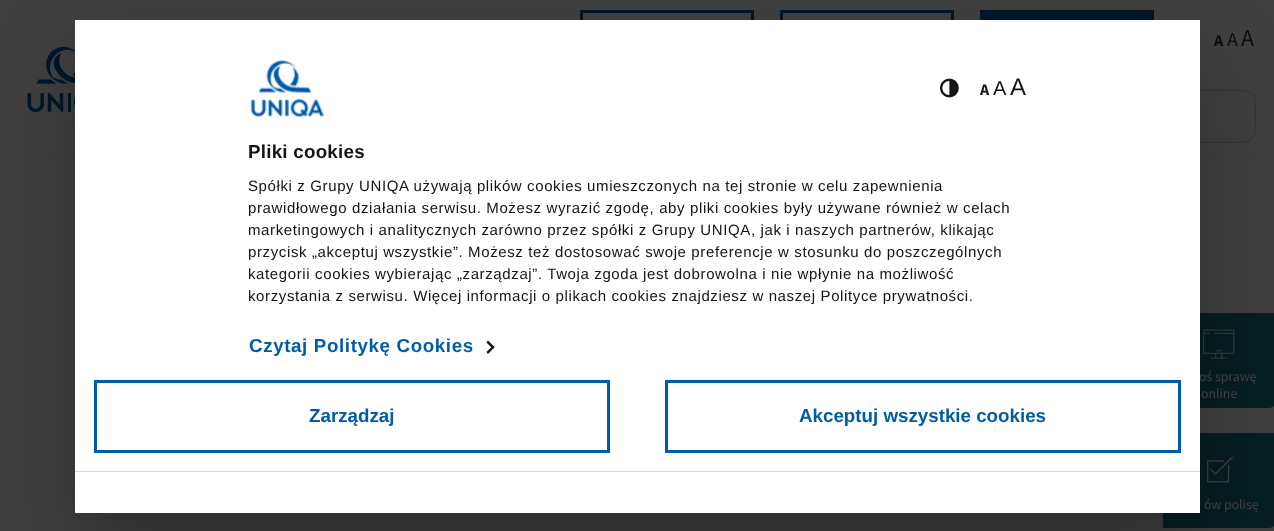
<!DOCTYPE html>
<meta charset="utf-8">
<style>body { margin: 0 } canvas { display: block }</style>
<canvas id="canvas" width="1274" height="531"></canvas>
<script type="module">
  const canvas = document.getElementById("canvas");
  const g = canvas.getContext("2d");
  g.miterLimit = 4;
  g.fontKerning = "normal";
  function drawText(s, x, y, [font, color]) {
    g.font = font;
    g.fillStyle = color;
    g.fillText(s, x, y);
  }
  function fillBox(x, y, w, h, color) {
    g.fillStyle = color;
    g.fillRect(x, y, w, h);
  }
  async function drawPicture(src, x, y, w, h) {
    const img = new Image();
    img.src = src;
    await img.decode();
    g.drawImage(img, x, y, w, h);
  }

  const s1 = ["bold 16px Source Sans Pro", "#0D0F0F"];
  const s2 = ["20px Source Sans Pro", "#0D0F0F"];
  const s3 = ["24px Source Sans Pro", "#0D0F0F"];
  const s4 = ["13.75px Source Sans Pro", "#404040"];
  const s5 = ["bold 16px Source Sans Pro", "#141414"];
  const s6 = ["20px Liberation Sans", "#141414"];
  const s7 = ["24px Liberation Sans", "#141414"];
  const s8 = ["bold 18.75px Liberation Sans", "#141414"];
  const s9 = ["15px Liberation Sans", "#141414"];
  const s10 = ["bold 18.75px Liberation Sans", "#005CA9"];

  fillBox(0, 0, 1274, 531, "#404040");
  fillBox(0, 156, 1274, 1, "#3A3C3E");
  fillBox(1200, 75, 56, 1, "#3A3C3E");
  g.strokeStyle = "#00172A";
  g.lineWidth = 3;
  g.strokeRect(581.5, 11.5, 171, 47);
  g.strokeRect(781.5, 11.5, 171, 47);
  fillBox(980, 10, 174, 10, "#00172A");
  drawText("A", 1214, 46, s1);
  drawText("A", 1227, 46, s2);
  drawText("A", 1241, 46, s3);
  g.beginPath();
  g.roundRect(1069.5, 90.5, 186, 52, 12.5);
  g.strokeStyle = "#343537";
  g.lineWidth = 1;
  g.stroke();
  await drawPicture("pic1.png", 27, 46, 48, 67);
  g.fillStyle = "#051F22";
  g.beginPath();
  g.moveTo(1169, 313);
  g.lineTo(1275, 313);
  g.lineTo(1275, 402);
  g.bezierCurveTo(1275, 405.5, 1272.5, 408, 1269, 408);
  g.lineTo(1163, 408);
  g.lineTo(1163, 319);
  g.bezierCurveTo(1163, 315.5, 1165.5, 313, 1169, 313);
  g.closePath();
  g.fill();
  await drawPicture("pic4.png", 1203, 329, 32, 30);
  g.beginPath();
  g.moveTo(1169, 433);
  g.lineTo(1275, 433);
  g.lineTo(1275, 522);
  g.bezierCurveTo(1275, 525.5, 1272.5, 528, 1269, 528);
  g.lineTo(1163, 528);
  g.lineTo(1163, 439);
  g.bezierCurveTo(1163, 435.5, 1165.5, 433, 1169, 433);
  g.closePath();
  g.fill();
  await drawPicture("pic5.png", 1207, 456, 26, 27);
  g.fillStyle = "rgba(0, 0, 0, 0.3)";
  g.filter = "blur(42.5px)";
  g.beginPath();
  g.rect(75, 60, 1125, 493);
  g.fill();
  g.filter = "none";
  drawText("oś sprawę", 1199, 381, s4);
  fillBox(75, 20, 1125, 493, "#FFFFFF");
  await drawPicture("pic2.png", 250, 59, 74, 59);
  await drawPicture("pic3.png", 940, 78, 19, 20);
  drawText("A", 980, 95, s5);
  drawText("A", 993, 95, s6);
  drawText("A", 1010, 95, s7);
  g.letterSpacing = "0.25px";
  drawText("Pliki cookies", 248, 158, s8);
  g.letterSpacing = "0.62px";
  drawText("Spółki z Grupy UNIQA używają plików cookies umieszczonych na tej stronie w celu zapewnienia", 248, 191, s9);
  drawText("prawidłowego działania serwisu. Możesz wyrazić zgodę, aby pliki cookies były używane również w celach", 248, 213, s9);
  drawText("marketingowych i analitycznych zarówno przez spółki z Grupy UNIQA, jak i naszych partnerów, klikając", 248, 235, s9);
  drawText("przycisk „akceptuj wszystkie”. Możesz też dostosować swoje preferencje w stosunku do poszczególnych", 248, 257, s9);
  drawText("kategorii cookies wybierając „zarządzaj”. Twoja zgoda jest dobrowolna i nie wpłynie na możliwość", 248, 279, s9);
  drawText("korzystania z serwisu. Więcej informacji o plikach cookies znajdziesz w naszej Polityce prywatności.", 248, 301, s9);
  drawText("Czytaj Politykę Cookies", 249, 352, s10);
  g.fillStyle = "#141414";
  g.beginPath();
  g.moveTo(488, 340.5);
  g.lineTo(494.5, 347);
  g.lineTo(493, 349);
  g.lineTo(486.5, 342.5);
  g.closePath();
  g.fill();
  g.beginPath();
  g.moveTo(493, 345.5);
  g.lineTo(494.5, 347);
  g.lineTo(488, 354);
  g.lineTo(486.5, 352);
  g.closePath();
  g.fill();
  fillBox(75, 471, 1125, 1, "#D6D6D6");
  g.strokeStyle = "#005CA9";
  g.lineWidth = 3;
  g.strokeRect(95.5, 381.5, 513, 70);
  g.letterSpacing = "0px";
  drawText("Zarządzaj", 309, 422, s10);
  g.strokeRect(666.5, 381.5, 513, 70);
  drawText("Akceptuj wszystkie cookies", 799, 422, s10);
  drawText("online", 1201, 398, s4);
  drawText("ów polisę", 1204, 509, s4);
</script>
